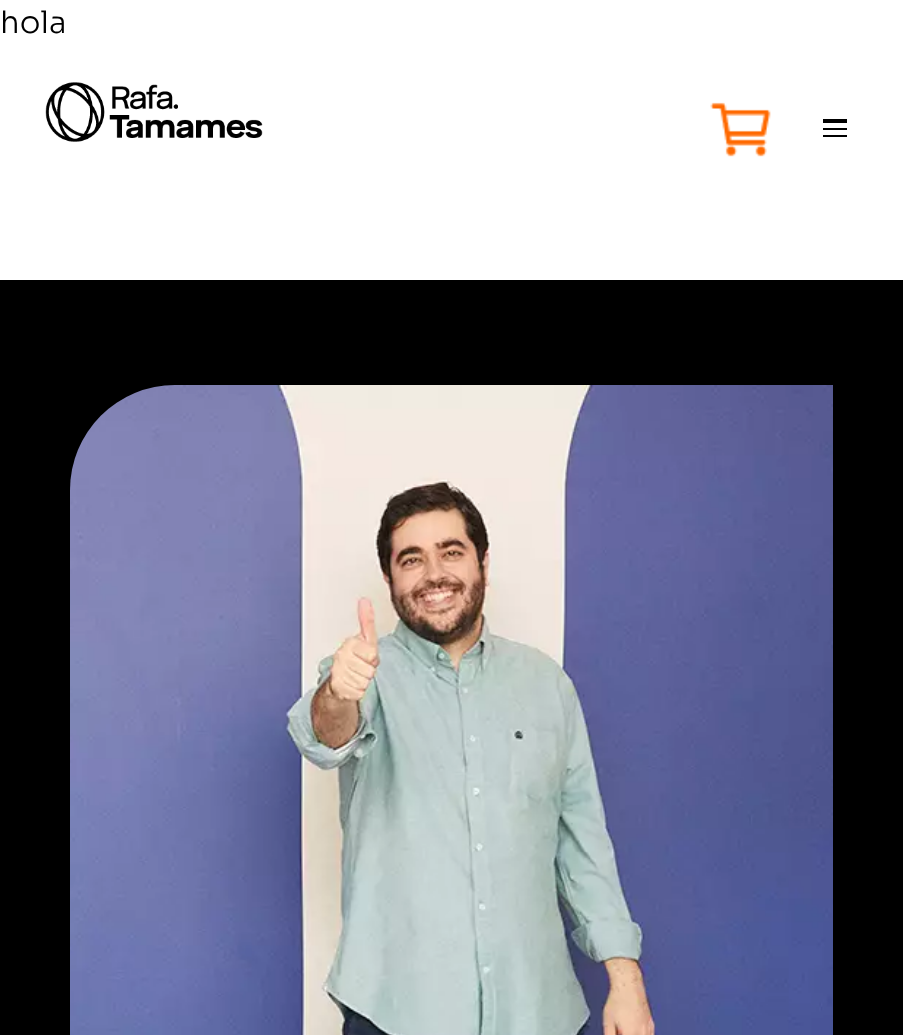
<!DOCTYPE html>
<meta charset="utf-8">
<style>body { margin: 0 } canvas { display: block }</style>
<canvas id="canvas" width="903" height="1035"></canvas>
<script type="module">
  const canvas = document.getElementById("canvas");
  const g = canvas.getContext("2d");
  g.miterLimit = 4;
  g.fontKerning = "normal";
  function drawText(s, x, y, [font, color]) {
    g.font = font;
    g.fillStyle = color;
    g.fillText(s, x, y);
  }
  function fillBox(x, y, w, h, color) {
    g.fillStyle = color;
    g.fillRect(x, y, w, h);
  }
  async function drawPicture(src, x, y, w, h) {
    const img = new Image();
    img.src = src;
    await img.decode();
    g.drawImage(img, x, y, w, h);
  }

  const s1 = ["300 31px Sora", "#000000"];

  fillBox(0, 0, 903, 1035, "#FFFFFF");
  drawText("hola", 0, 33, s1);
  await drawPicture("pic1.png", 45, 82, 218, 60);
  await drawPicture("pic2.png", 710, 102, 61, 55);
  fillBox(823, 119, 24, 4, "#000000");
  fillBox(823, 128, 24, 2, "#000000");
  fillBox(823, 135, 24, 2, "#000000");
  fillBox(0, 280, 903, 755, "#000000");
  await drawPicture("pic3.png", 70, 385, 763, 650);
</script>
